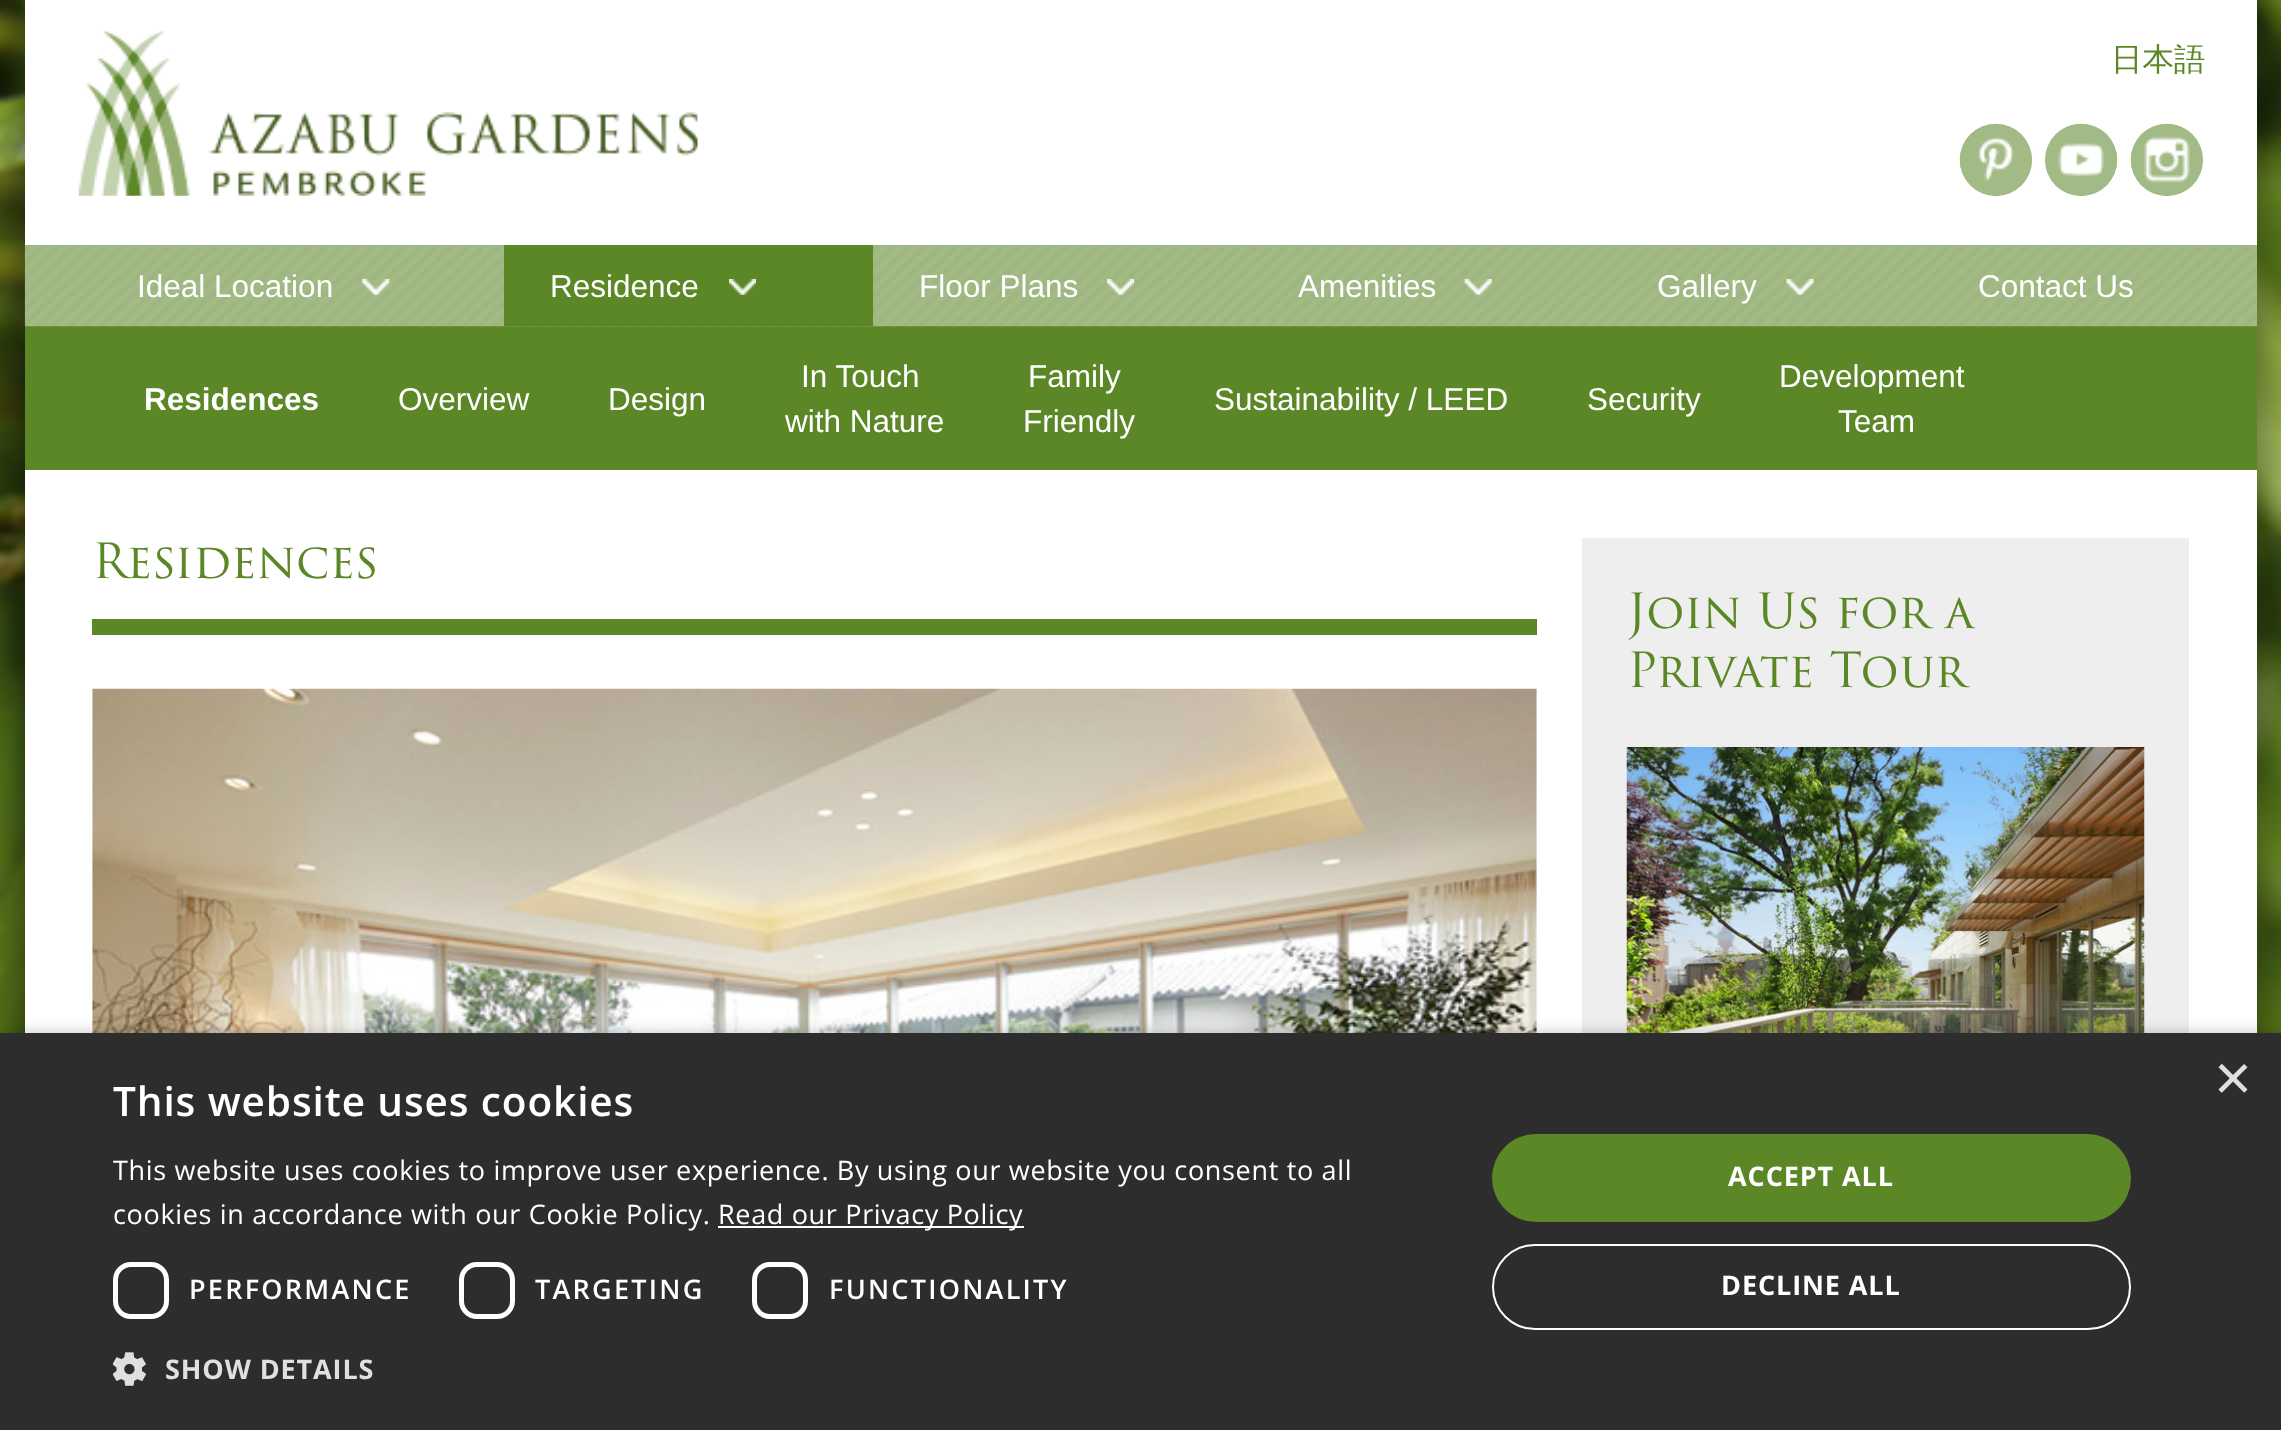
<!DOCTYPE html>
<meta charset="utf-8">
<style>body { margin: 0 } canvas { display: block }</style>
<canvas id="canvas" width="2281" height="1430"></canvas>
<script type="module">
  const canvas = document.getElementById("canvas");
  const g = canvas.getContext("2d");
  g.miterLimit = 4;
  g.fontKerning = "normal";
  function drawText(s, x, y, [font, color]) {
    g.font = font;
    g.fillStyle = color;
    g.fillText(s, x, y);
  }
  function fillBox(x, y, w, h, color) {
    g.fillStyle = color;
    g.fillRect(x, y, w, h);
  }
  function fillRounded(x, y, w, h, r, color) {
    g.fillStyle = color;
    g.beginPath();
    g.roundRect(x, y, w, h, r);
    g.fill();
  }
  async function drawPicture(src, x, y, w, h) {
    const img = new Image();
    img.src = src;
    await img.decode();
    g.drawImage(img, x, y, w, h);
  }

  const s1 = ["500 31.5px WenQuanYi Zen Hei", "#5C8727"];
  const s2 = ["31.5px Liberation Sans", "#FFFFFF"];
  const s3 = ["bold 31.5px Liberation Sans", "#FFFFFF"];
  const s4 = ["47.25px 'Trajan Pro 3'", "#5C8727"];
  const s5 = ["65px Liberation Sans", "#E0E0E0"];
  const s6 = ["600 40.5px Open Sans", "#FFFFFF"];
  const s7 = ["27px Open Sans", "#FFFFFF"];
  const s8 = ["600 27px Open Sans", "#FFFFFF"];
  const s9 = ["bold 27px Open Sans", "#E0E0E0"];
  const s10 = ["bold 27px Open Sans", "#FFFFFF"];

  fillBox(0, 0, 2281, 1430, "#FFFFFF");
  await drawPicture("pic1.png", 0, 0, 2281, 1033);
  g.fillStyle = "rgba(0, 0, 0, 0.7)";
  g.filter = "blur(34px)";
  g.beginPath();
  g.rect(25, 0, 2232, 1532);
  g.fill();
  g.filter = "none";
  fillBox(25, 0, 2232, 1033, "#FFFFFF");
  await drawPicture("pic2.png", 78, 31, 620, 165);
  g.fillStyle = "#A2BA85";
  g.beginPath();
  g.arc(1996, 160, 36, 0, Math.PI * 2);
  g.fill();
  await drawPicture("pic3.png", 1959, 123, 73, 73);
  g.beginPath();
  g.arc(2081, 160, 36, 0, Math.PI * 2);
  g.fill();
  await drawPicture("pic4.png", 2045, 123, 73, 73);
  g.beginPath();
  g.arc(2167, 160, 36, 0, Math.PI * 2);
  g.fill();
  await drawPicture("pic5.png", 2130, 123, 73, 73);
  drawText("日本語", 2111, 70, s1);
  fillBox(25, 245, 2232, 81, "#A3BB85");
  fillBox(25, 326, 2232, 144, "#5C8727");
  await drawPicture("pic6.png", 24, 245, 2233, 82);
  drawText("Ideal Location", 137, 297, s2);
  await drawPicture("pic7.png", 362, 279, 28, 16);
  fillBox(504, 245, 369, 81, "#5C8727");
  drawText("Residence", 550, 297, s2);
  await drawPicture("pic8.png", 729, 279, 27, 16);
  drawText("Floor Plans", 919, 297, s2);
  await drawPicture("pic9.png", 1107, 279, 27, 16);
  drawText("Amenities", 1298, 297, s2);
  await drawPicture("pic10.png", 1464, 279, 28, 16);
  drawText("Gallery", 1657, 297, s2);
  await drawPicture("pic11.png", 1786, 279, 28, 16);
  drawText("Contact Us", 1978, 297, s2);
  drawText("Residences", 144, 410, s3);
  drawText("Overview", 398, 410, s2);
  drawText("Design", 608, 410, s2);
  drawText("In Touch", 801, 387, s2);
  drawText("with Nature", 785, 432, s2);
  drawText("Family", 1028, 387, s2);
  drawText("Friendly", 1023, 432, s2);
  drawText("Sustainability / LEED", 1214, 410, s2);
  drawText("Security", 1587, 410, s2);
  drawText("Development", 1779, 387, s2);
  drawText("Team", 1838, 432, s2);
  fillBox(92, 619, 1445, 16, "#5C8727");
  drawText("Residences", 92, 578, s4);
  await drawPicture("pic12.png", 92, 688, 1445, 345);
  fillBox(1582, 538, 607, 495, "#EEEEEE");
  drawText("Join Us for a", 1627, 628, s4);
  drawText("Private Tour", 1627, 687, s4);
  await drawPicture("pic13.png", 1626, 747, 519, 286);
  g.fillStyle = "rgba(0, 0, 0, 0.35)";
  g.filter = "blur(9px)";
  g.beginPath();
  g.rect(2, 1037, 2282, 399);
  g.fill();
  g.filter = "none";
  fillBox(0, 1033, 2281, 397, "#2D2D2D");
  drawText("×", 2214, 1100, s5);
  g.letterSpacing = "0.9px";
  drawText("This website uses cookies", 113, 1116, s6);
  g.letterSpacing = "0.67px";
  drawText("This website uses cookies to improve user experience. By using our website you consent to all", 113, 1180, s7);
  drawText("cookies in accordance with our Cookie Policy.", 113, 1224, s7);
  fillBox(718, 1226, 306, 2, "#FFFFFF");
  drawText("Read our Privacy Policy", 718, 1224, s7);
  g.beginPath();
  g.roundRect(115.5, 1264.5, 51, 52, 15.5);
  g.strokeStyle = "#FFFFFF";
  g.lineWidth = 5;
  g.stroke();
  g.letterSpacing = "2.25px";
  drawText("PERFORMANCE", 189, 1299, s8);
  g.beginPath();
  g.roundRect(461.5, 1264.5, 51, 52, 15.5);
  g.stroke();
  drawText("TARGETING", 535, 1299, s8);
  g.beginPath();
  g.roundRect(754.5, 1264.5, 51, 52, 15.5);
  g.stroke();
  drawText("FUNCTIONALITY", 829, 1299, s8);
  await drawPicture("pic14.png", 113, 1352, 33, 34);
  g.letterSpacing = "0.9px";
  drawText("SHOW DETAILS", 165, 1379, s9);
  fillRounded(1492, 1134, 639, 88, 44, "#5C8727");
  drawText("ACCEPT ALL", 1728, 1186, s10);
  g.beginPath();
  g.roundRect(1493, 1245, 637, 84, 42);
  g.lineWidth = 2;
  g.stroke();
  drawText("DECLINE ALL", 1721, 1295, s10);
</script>
